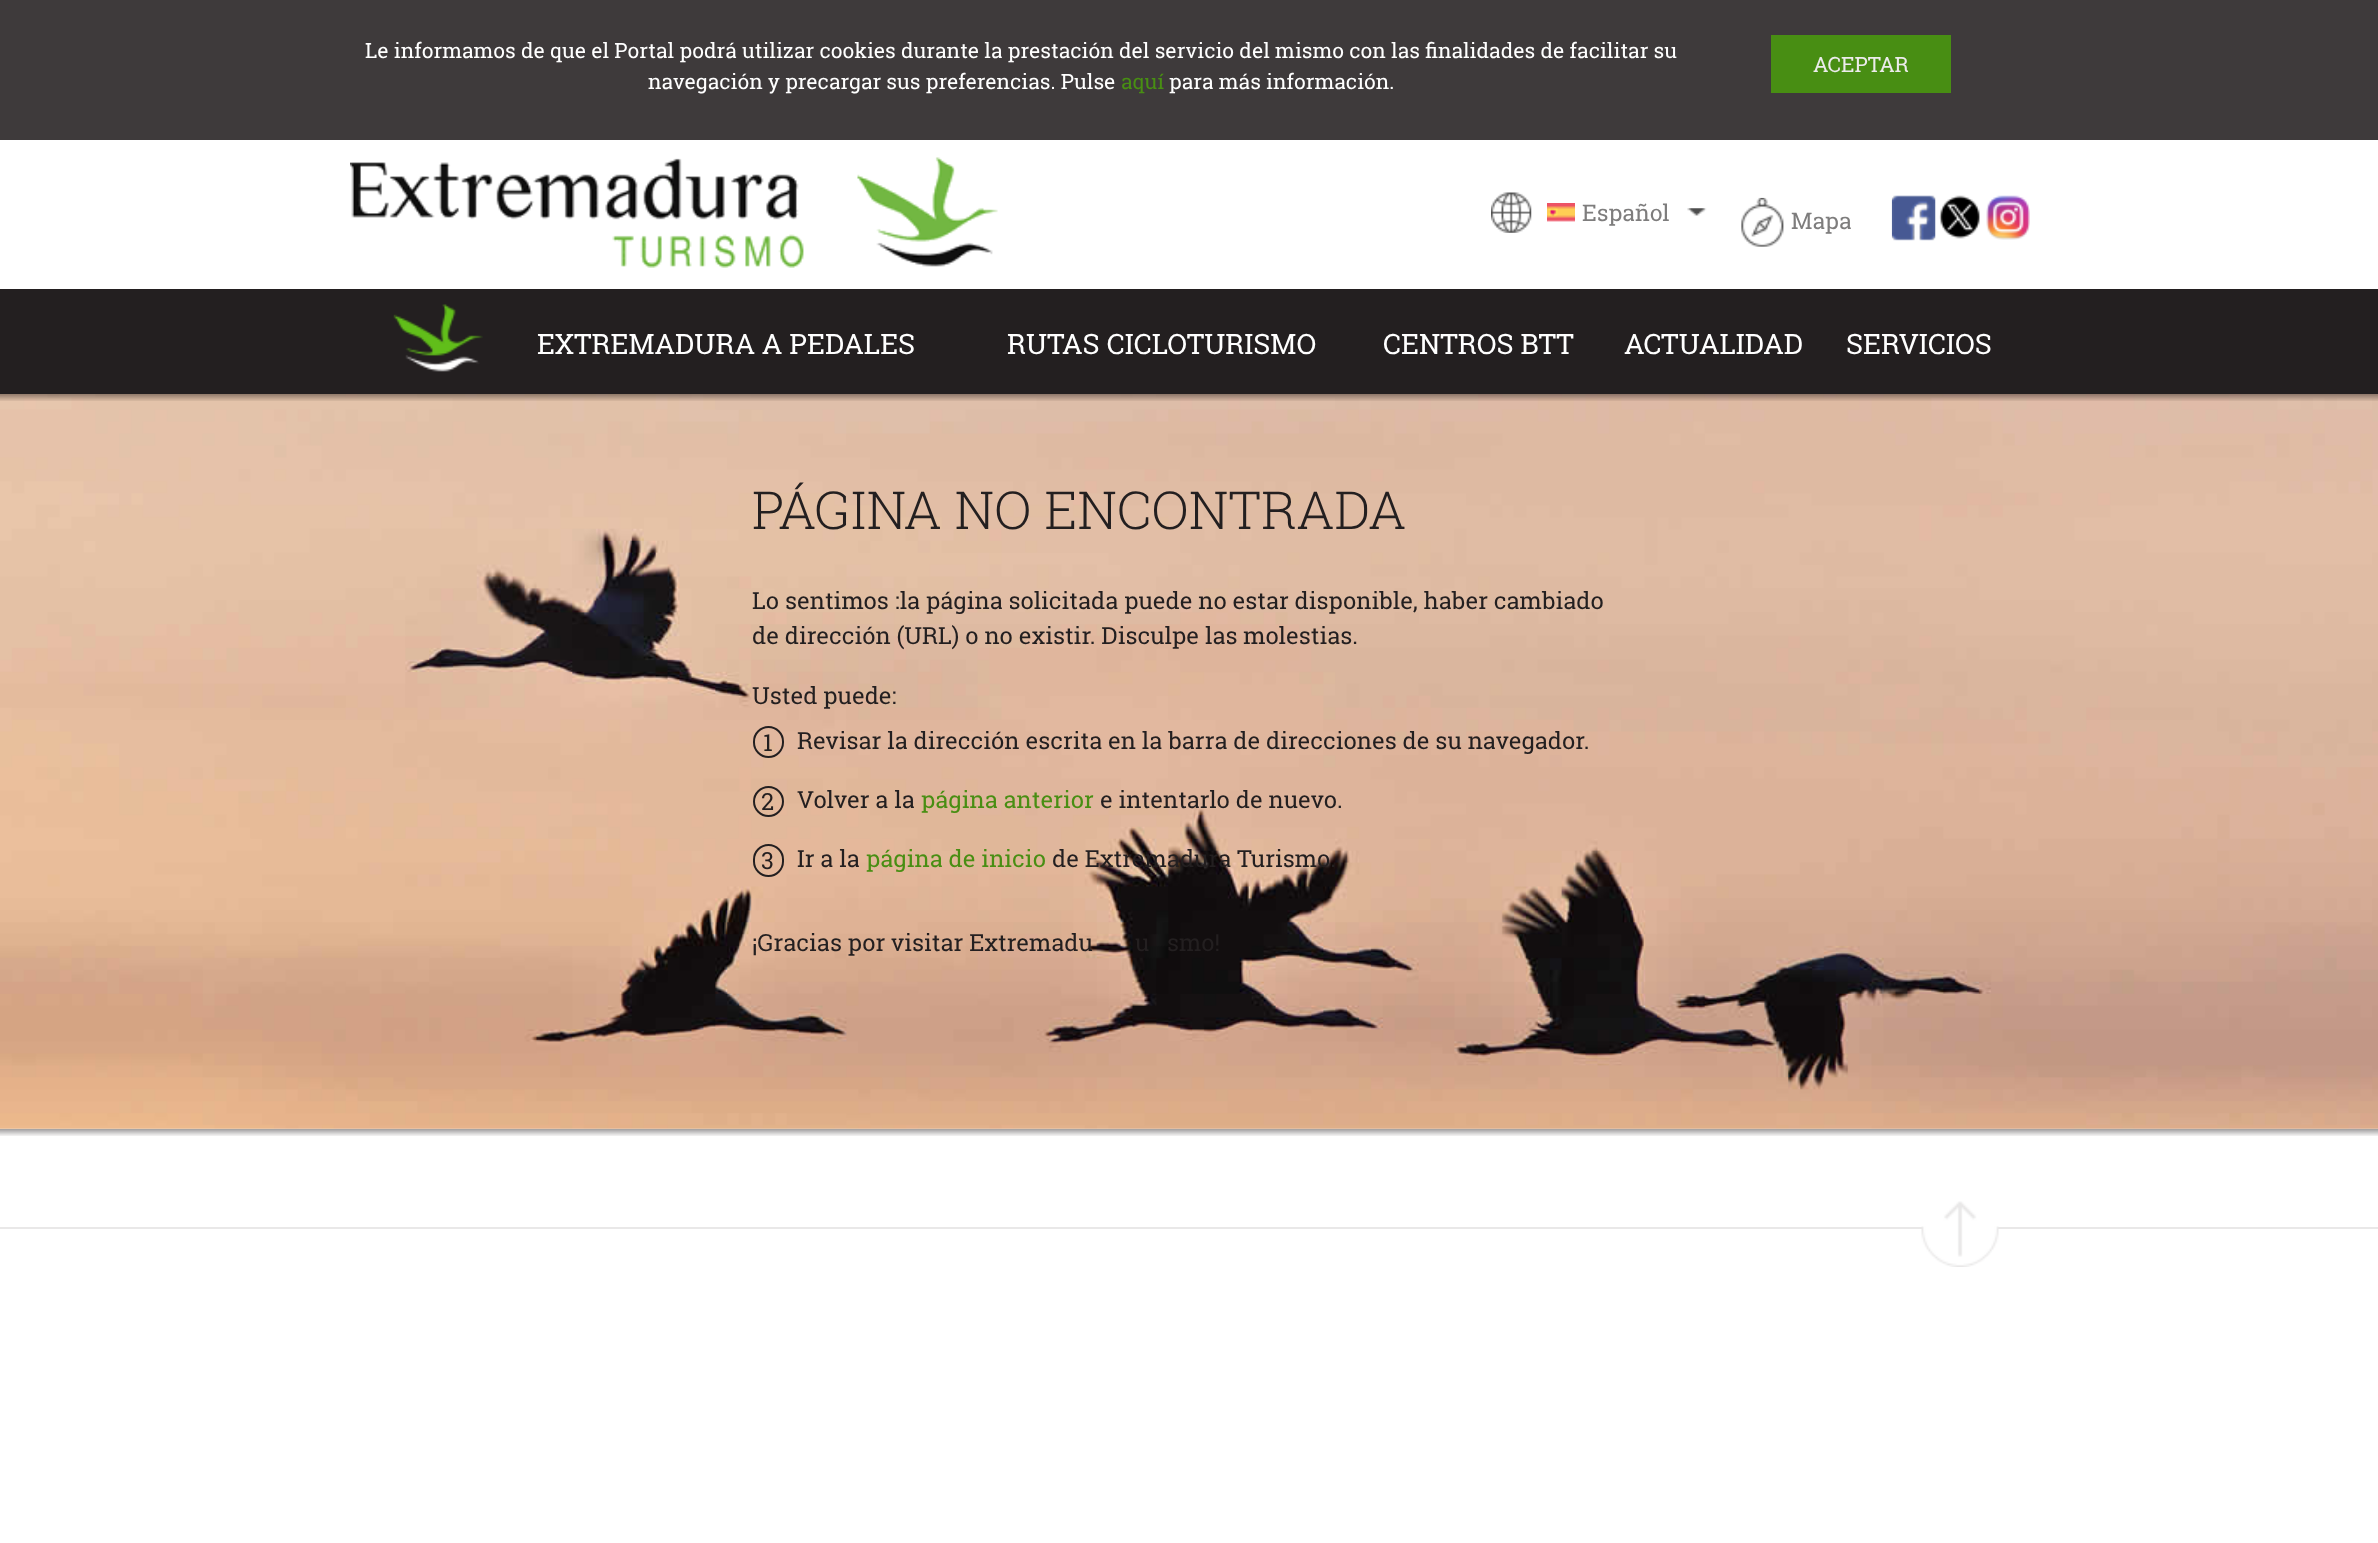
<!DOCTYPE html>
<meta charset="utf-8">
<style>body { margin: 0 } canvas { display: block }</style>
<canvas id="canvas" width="2378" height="1543"></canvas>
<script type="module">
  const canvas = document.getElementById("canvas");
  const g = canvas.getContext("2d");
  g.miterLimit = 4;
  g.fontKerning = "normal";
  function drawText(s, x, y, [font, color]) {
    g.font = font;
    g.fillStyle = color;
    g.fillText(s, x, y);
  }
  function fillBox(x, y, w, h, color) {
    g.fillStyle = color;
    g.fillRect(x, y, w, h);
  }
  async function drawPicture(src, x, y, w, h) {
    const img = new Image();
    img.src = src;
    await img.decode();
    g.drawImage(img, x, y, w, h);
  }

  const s1 = ["21px Roboto Slab", "#FFFFFF"];
  const s2 = ["21px Roboto Slab", "#488E13"];
  const s3 = ["21px Roboto Slab", "#ECEBEB"];
  const s4 = ["23px Roboto Slab", "#7E7D7D"];
  const s5 = ["28px Roboto Slab", "#FFFFFF"];
  const s6 = ["300 52.5px Roboto Slab", "#231F20"];
  const s7 = ["23.65px Roboto Slab", "#231F20"];
  const s8 = ["23.65px Roboto Slab", "#488E13"];

  fillBox(0, 0, 2378, 1543, "#FFFFFF");
  fillBox(0, 0, 2378, 140, "#3E3A3B");
  drawText("Le informamos de que el Portal podrá utilizar cookies durante la prestación del servicio del mismo con las finalidades de facilitar su", 365, 58, s1);
  drawText("navegación y precargar sus preferencias. Pulse", 648, 89, s1);
  drawText("aquí", 1121, 89, s2);
  drawText("para más información.", 1169, 89, s1);
  fillBox(1771, 35, 180, 58, "#488E13");
  drawText("ACEPTAR", 1813, 72, s3);
  await drawPicture("pic1.png", 350, 157, 648, 111);
  await drawPicture("pic2.png", 1491, 192, 41, 41);
  await drawPicture("pic3.png", 1547, 203, 28, 19);
  drawText("Español", 1582, 221, s4);
  await drawPicture("pic4.png", 1687, 208, 20, 8);
  await drawPicture("pic5.png", 1741, 197, 43, 50);
  drawText("Mapa", 1791, 229, s4);
  await drawPicture("pic6.png", 1891, 195, 45, 46);
  await drawPicture("pic7.png", 1939, 195, 41, 44);
  await drawPicture("pic8.png", 1986, 195, 44, 45);
  fillBox(0, 289, 2378, 105, "#231F20");
  await drawPicture("pic9.png", 393, 304, 90, 68);
  drawText("EXTREMADURA A PEDALES", 537, 354, s5);
  drawText("RUTAS CICLOTURISMO", 1007, 354, s5);
  drawText("CENTROS BTT", 1383, 354, s5);
  drawText("ACTUALIDAD", 1624, 354, s5);
  drawText("SERVICIOS", 1846, 354, s5);
  await drawPicture("pic10.png", 0, 1128, 2378, 8);
  await drawPicture("pic12.png", 0, 394, 2378, 735);
  await drawPicture("pic11.png", 0, 394, 2378, 7);
  drawText("PÁGINA NO ENCONTRADA", 752, 529, s6);
  drawText("Lo sentimos :la página solicitada puede no estar disponible, haber cambiado", 752, 609, s7);
  drawText("de dirección (URL) o no existir. Disculpe las molestias.", 752, 644, s7);
  drawText("Usted puede:", 752, 704, s7);
  g.beginPath();
  g.roundRect(754, 727, 29, 30, 14.5);
  g.strokeStyle = "#231F20";
  g.lineWidth = 2;
  g.stroke();
  drawText("1", 763, 751, s7);
  drawText("Revisar la dirección escrita en la barra de direcciones de su navegador.", 797, 749, s7);
  g.beginPath();
  g.arc(768.5, 801.5, 14.5, 0, Math.PI * 2);
  g.stroke();
  drawText("2", 761, 810, s7);
  drawText("Volver a la", 797, 808, s7);
  drawText("página anterior", 921, 808, s8);
  drawText("e intentarlo de nuevo.", 1100, 808, s7);
  g.beginPath();
  g.roundRect(754, 845, 29, 31, 14.5);
  g.stroke();
  drawText("3", 761, 869, s7);
  drawText("Ir a la", 797, 867, s7);
  drawText("página de inicio", 866, 867, s8);
  drawText("de Extremadura Turismo.", 1052, 867, s7);
  drawText("¡Gracias por visitar Extremadu", 752, 951, s7);
  drawText("u", 1135, 951, s7);
  drawText("smo!", 1167, 951, s7);
  fillBox(0, 1227, 2378, 2, "#E9E8E8");
  await drawPicture("pic13.png", 1921, 1201, 78, 66);
</script>
